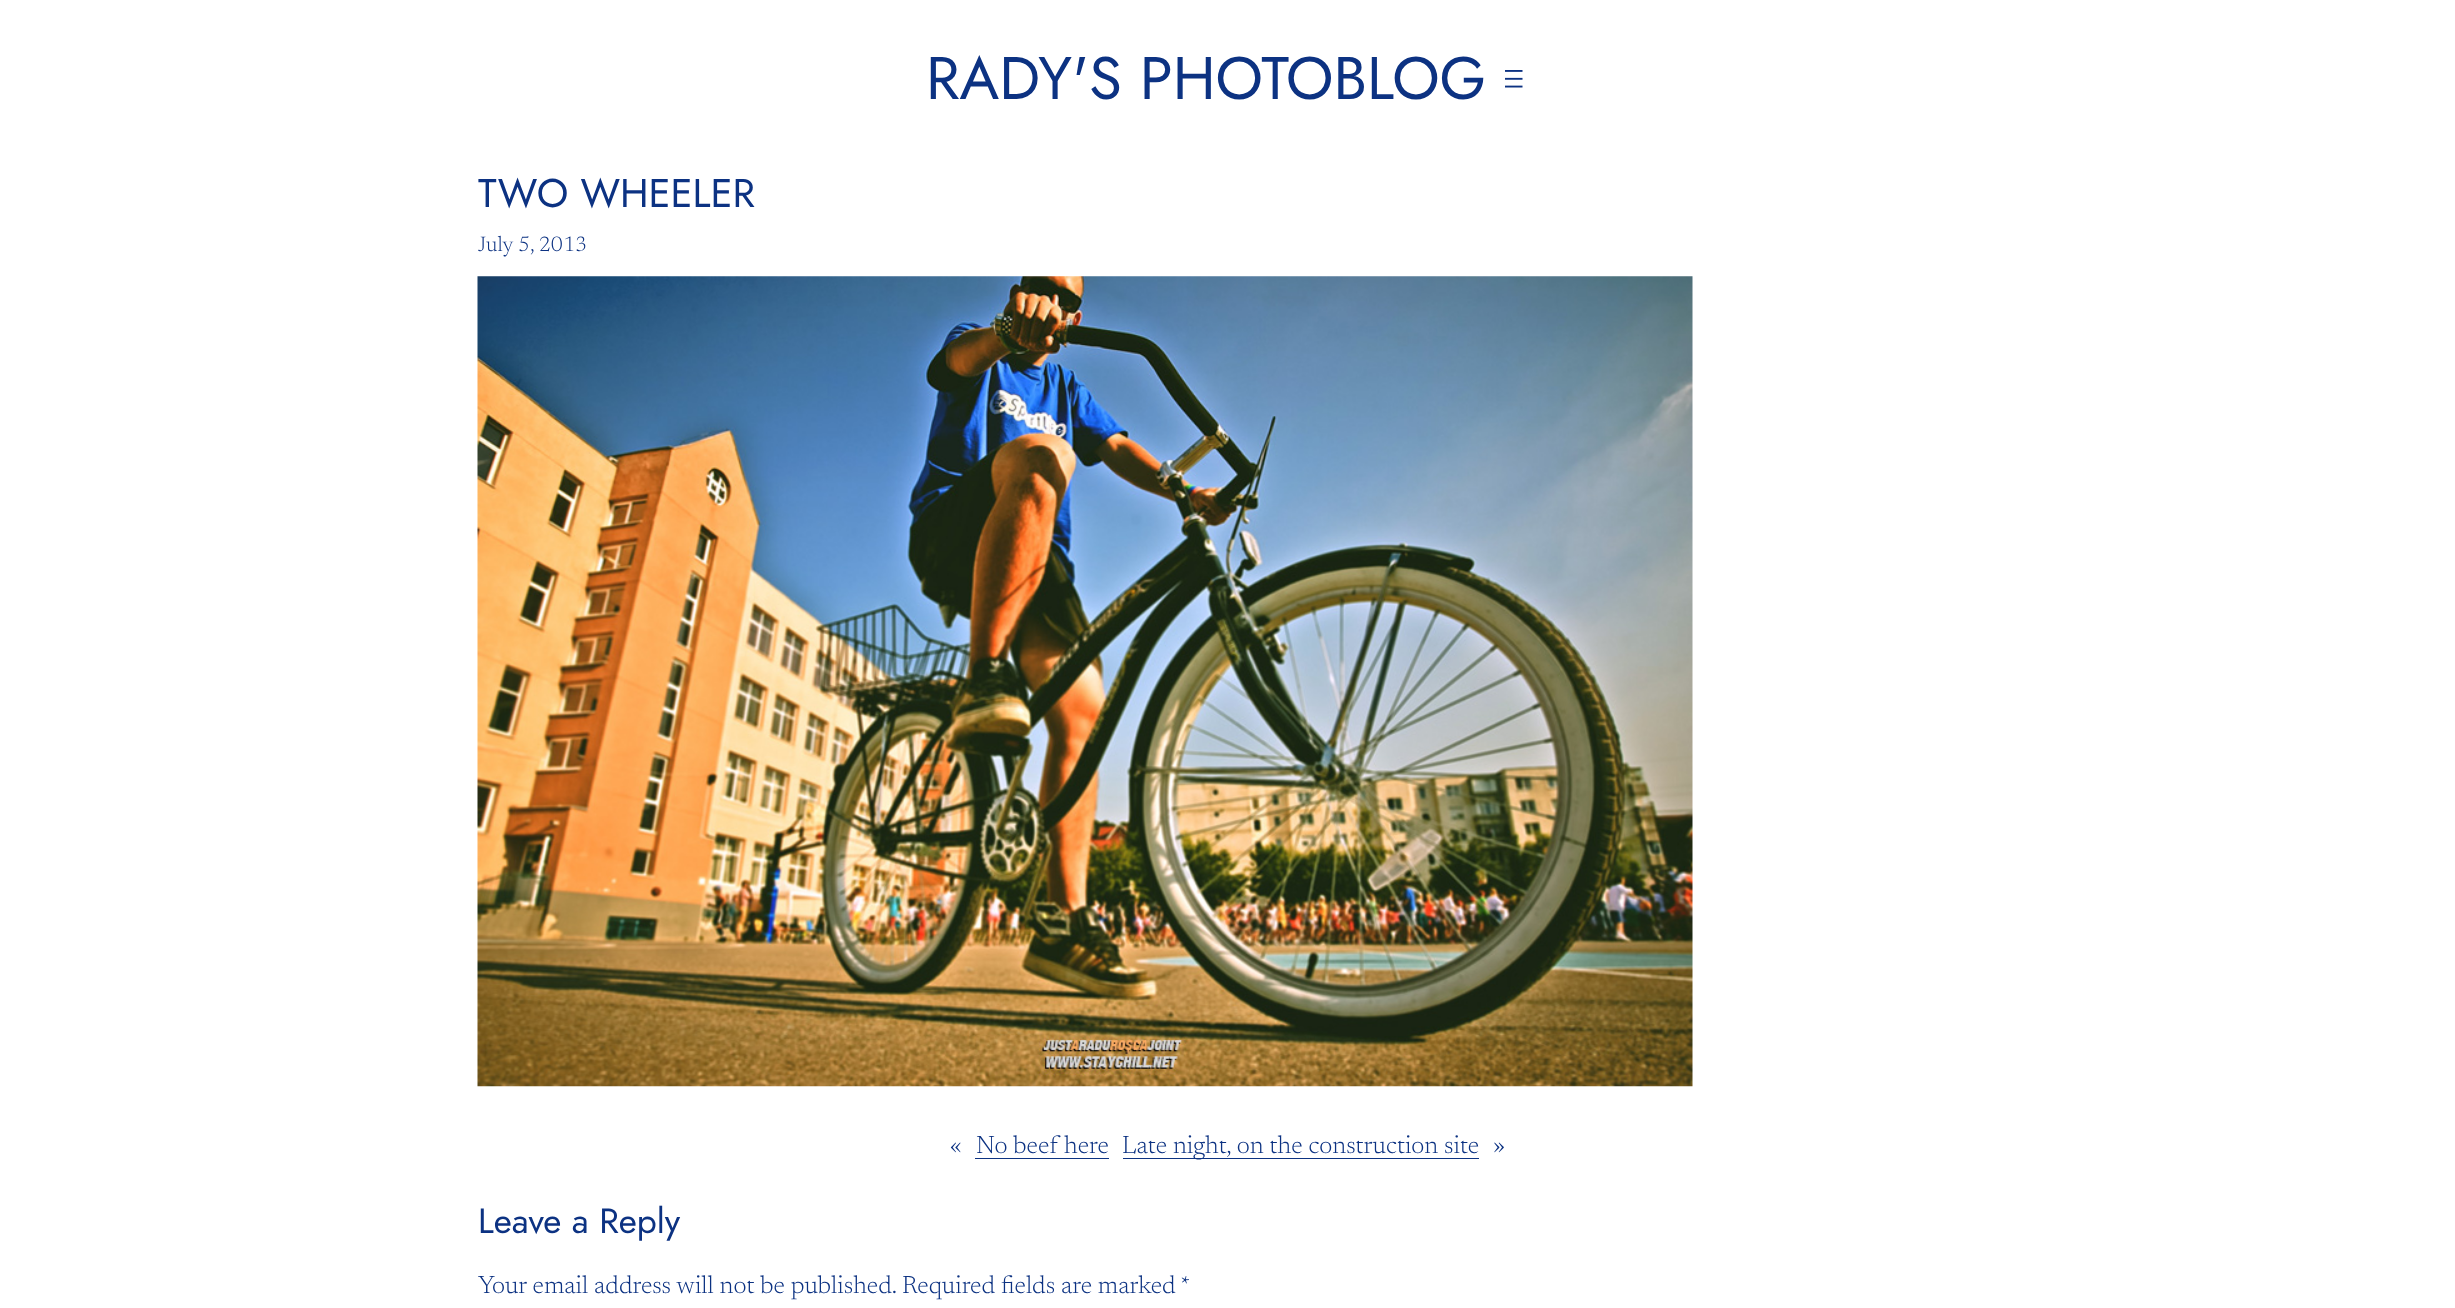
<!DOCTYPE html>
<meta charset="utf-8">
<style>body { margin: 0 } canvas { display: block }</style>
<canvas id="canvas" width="2455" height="1308"></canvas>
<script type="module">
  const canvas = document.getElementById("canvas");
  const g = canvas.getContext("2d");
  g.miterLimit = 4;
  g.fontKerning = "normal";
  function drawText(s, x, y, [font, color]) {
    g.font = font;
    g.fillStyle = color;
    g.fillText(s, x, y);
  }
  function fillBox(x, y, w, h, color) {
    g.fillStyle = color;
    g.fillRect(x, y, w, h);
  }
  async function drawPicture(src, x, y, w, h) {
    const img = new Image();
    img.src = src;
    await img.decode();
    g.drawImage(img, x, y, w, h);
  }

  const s1 = ["60px Jost", "#0C3282"];
  const s2 = ["40px Jost", "#0C3282"];
  const s3 = ["300 21.25px Newsreader", "#0C3282"];
  const s4 = ["300 25px Newsreader", "#0C3282"];
  const s5 = ["35px Jost", "#0C3282"];

  fillBox(0, 0, 2455, 1308, "#FFFFFF");
  drawText("RADY'S PHOTOBLOG", 926, 99, s1);
  await drawPicture("pic1.png", 1505, 70, 18, 18);
  drawText("TWO WHEELER", 478, 207, s2);
  drawText("July 5, 2013", 478, 251, s3);
  await drawPicture("pic2.png", 477, 276, 1216, 811);
  drawText("«", 950, 1153, s4);
  drawText("No beef here", 976, 1153, s4);
  fillBox(975, 1158, 134, 1, "#0C3282");
  fillBox(1123, 1158, 356, 1, "#0C3282");
  drawText("Late night, on the construction site", 1122, 1153, s4);
  drawText("»", 1493, 1153, s4);
  drawText("Leave a Reply", 478, 1233, s5);
  drawText("Your email address will not be published.", 478, 1293, s4);
  drawText("Required fields are marked", 902, 1293, s4);
  drawText("*", 1180, 1293, s4);
</script>
